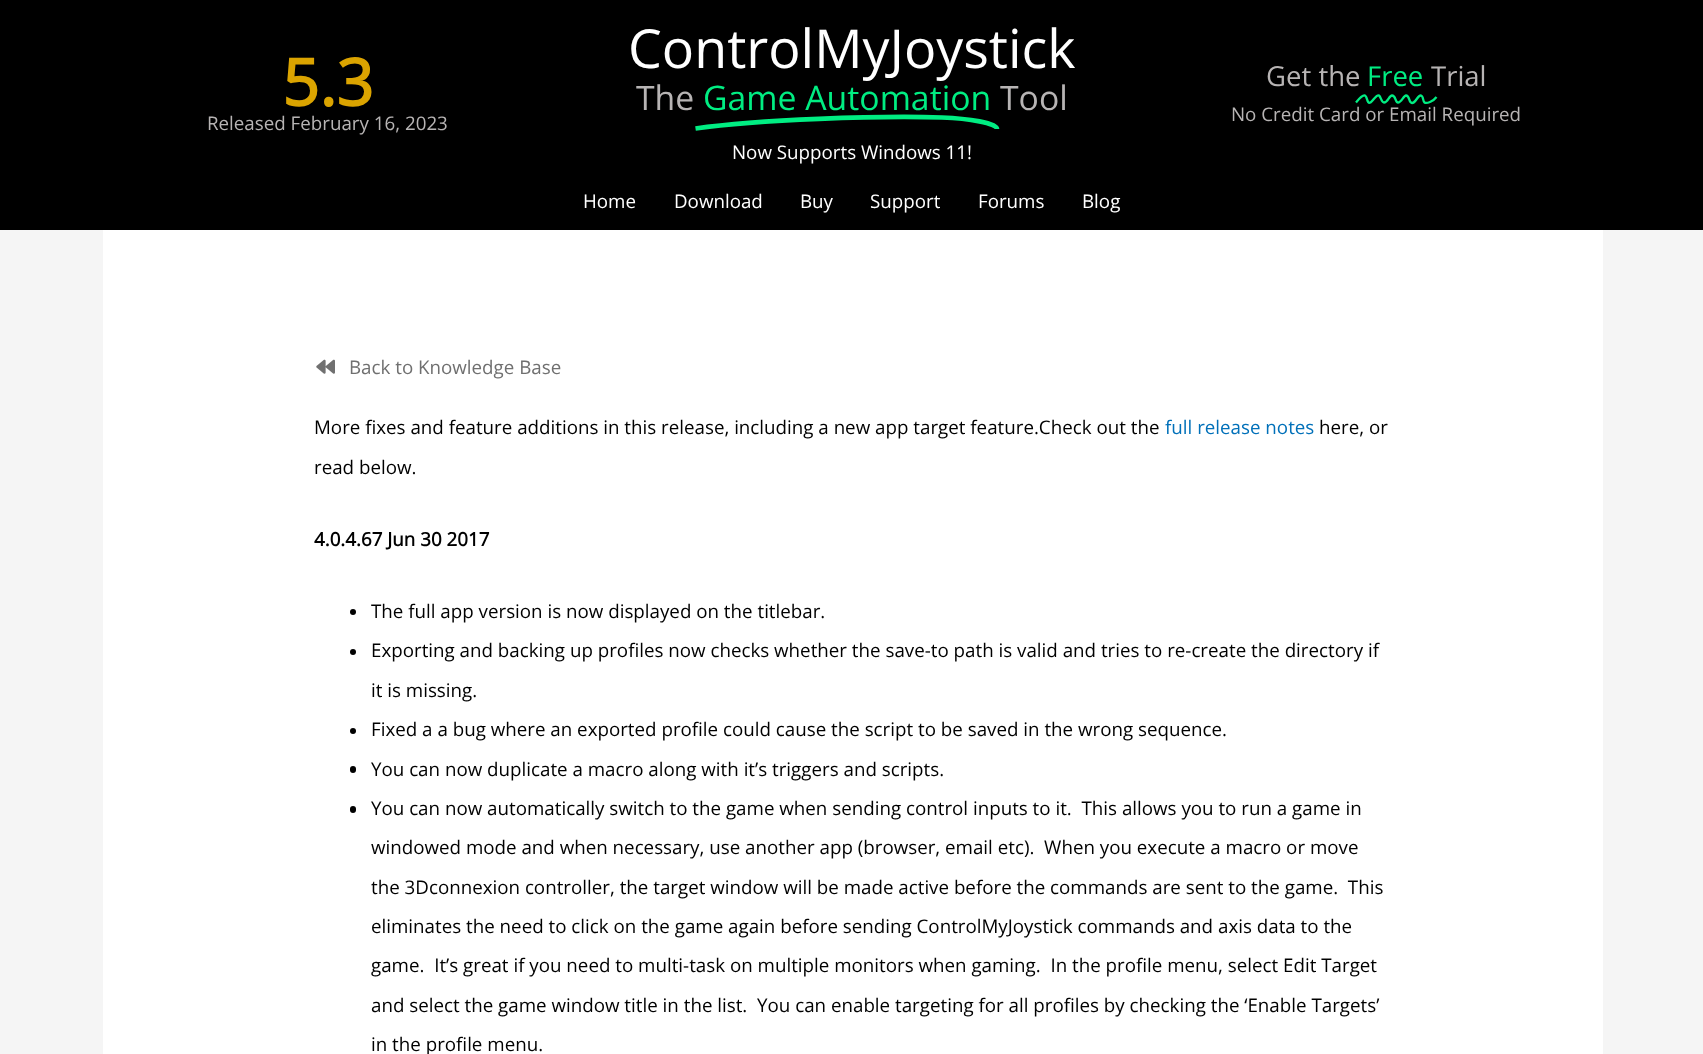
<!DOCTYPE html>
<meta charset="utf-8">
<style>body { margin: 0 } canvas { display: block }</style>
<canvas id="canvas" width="1703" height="1054"></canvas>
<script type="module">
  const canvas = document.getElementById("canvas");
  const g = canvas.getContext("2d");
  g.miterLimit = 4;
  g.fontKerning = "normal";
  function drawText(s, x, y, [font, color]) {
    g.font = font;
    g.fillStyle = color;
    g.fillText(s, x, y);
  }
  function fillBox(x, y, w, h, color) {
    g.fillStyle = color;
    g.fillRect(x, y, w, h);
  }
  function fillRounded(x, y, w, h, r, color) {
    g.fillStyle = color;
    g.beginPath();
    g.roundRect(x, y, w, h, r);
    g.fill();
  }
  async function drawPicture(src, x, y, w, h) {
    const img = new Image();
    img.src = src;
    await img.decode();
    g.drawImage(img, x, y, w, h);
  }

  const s1 = ["bold 65px Open Sans", "#DBA400"];
  const s2 = ["18.75px Open Sans", "#B7B4B4"];
  const s3 = ["53.75px Open Sans", "#FFFFFF"];
  const s4 = ["33.75px Open Sans", "#B7B4B4"];
  const s5 = ["33.75px Open Sans", "#00ED82"];
  const s6 = ["18.75px Open Sans", "#FFFFFF"];
  const s7 = ["27.5px Open Sans", "#B7B4B4"];
  const s8 = ["27.5px Open Sans", "#00ED82"];
  const s9 = ["18.75px Open Sans", "#707070"];
  const s10 = ["18.75px Open Sans", "#000000"];
  const s11 = ["18.75px Open Sans", "#0170B9"];
  const s12 = ["bold 18.75px Open Sans", "#000000"];

  fillBox(0, 0, 1703, 1054, "#F5F5F5");
  fillBox(0, 0, 1703, 230, "#000000");
  drawText("5.3", 282, 106, s1);
  drawText("Released February 16, 2023", 207, 130, s2);
  drawText("ControlMyJoystick", 628, 68, s3);
  drawText("The", 636, 110, s4);
  drawText("Game Automation", 703, 110, s5);
  g.beginPath();
  g.moveTo(695.5, 128.5);
  g.bezierCurveTo(759, 119.5, 879, 115.5, 942, 117.5);
  g.bezierCurveTo(968.5, 118.5, 997, 123, 997, 129);
  g.strokeStyle = "#00ED82";
  g.lineWidth = 4.7;
  g.stroke();
  drawText("Tool", 1000, 110, s4);
  drawText("Now Supports Windows 11!", 732, 159, s6);
  drawText("Get the", 1266, 86, s7);
  drawText("Free", 1367, 86, s8);
  g.beginPath();
  g.moveTo(1356, 102.5);
  g.bezierCurveTo(1370, 85.5, 1364.5, 105, 1370.5, 102.5);
  g.bezierCurveTo(1373, 101, 1376.5, 94, 1379, 95.5);
  g.bezierCurveTo(1381, 97, 1381.5, 102.5, 1384, 102.5);
  g.bezierCurveTo(1388, 102.5, 1389, 95.5, 1392, 95.5);
  g.bezierCurveTo(1396, 95.5, 1395, 102.5, 1398, 102.5);
  g.bezierCurveTo(1401.5, 102.5, 1403.5, 95.5, 1406, 95.5);
  g.bezierCurveTo(1410, 95.5, 1408.5, 103, 1412, 103);
  g.bezierCurveTo(1416, 103, 1417.5, 95, 1421, 95.5);
  g.bezierCurveTo(1425, 96.5, 1420.5, 106, 1430, 102);
  g.bezierCurveTo(1432.5, 101, 1435, 99, 1436.5, 97);
  g.lineWidth = 2.3;
  g.stroke();
  drawText("Trial", 1431, 86, s7);
  drawText("No Credit Card or Email Required", 1231, 121, s2);
  drawText("Home", 583, 208, s6);
  drawText("Download", 674, 208, s6);
  drawText("Buy", 800, 208, s6);
  drawText("Support", 870, 208, s6);
  drawText("Forums", 978, 208, s6);
  drawText("Blog", 1082, 208, s6);
  fillBox(103, 230, 1500, 824, "#FFFFFF");
  await drawPicture("pic1.png", 316, 359, 19, 15);
  drawText("Back to Knowledge Base", 349, 374, s9);
  drawText("More fixes and feature additions in this release, including a new app target feature.Check out the", 314, 434, s10);
  drawText("full release notes", 1165, 434, s11);
  drawText("here, or", 1319, 434, s10);
  drawText("read below.", 314, 474, s10);
  drawText("4.0.4.67 Jun 30 2017", 314, 546, s12);
  g.beginPath();
  g.arc(353, 612, 3, 0, Math.PI * 2);
  g.fill();
  drawText("The full app version is now displayed on the titlebar.", 371, 618, s10);
  g.beginPath();
  g.arc(353, 652, 3, 0, Math.PI * 2);
  g.fill();
  drawText("Exporting and backing up profiles now checks whether the save-to path is valid and tries to re-create the directory if", 371, 657, s10);
  drawText("it is missing.", 371, 697, s10);
  g.beginPath();
  g.arc(353, 731, 3, 0, Math.PI * 2);
  g.fill();
  drawText("Fixed a a bug where an exported profile could cause the script to be saved in the wrong sequence.", 371, 736, s10);
  fillRounded(350, 766, 6, 7, 3, "#000000");
  drawText("You can now duplicate a macro along with it’s triggers and scripts.", 371, 776, s10);
  fillRounded(350, 806, 6, 7, 3, "#000000");
  drawText("You can now automatically switch to the game when sending control inputs to it.  This allows you to run a game in", 371, 815, s10);
  drawText("windowed mode and when necessary, use another app (browser, email etc).  When you execute a macro or move", 371, 854, s10);
  drawText("the 3Dconnexion controller, the target window will be made active before the commands are sent to the game.  This", 371, 894, s10);
  drawText("eliminates the need to click on the game again before sending ControlMyJoystick commands and axis data to the", 371, 933, s10);
  drawText("game.  It’s great if you need to multi-task on multiple monitors when gaming.  In the profile menu, select Edit Target", 371, 972, s10);
  drawText("and select the game window title in the list.  You can enable targeting for all profiles by checking the ‘Enable Targets’", 371, 1012, s10);
  drawText("in the profile menu.", 371, 1051, s10);
</script>
